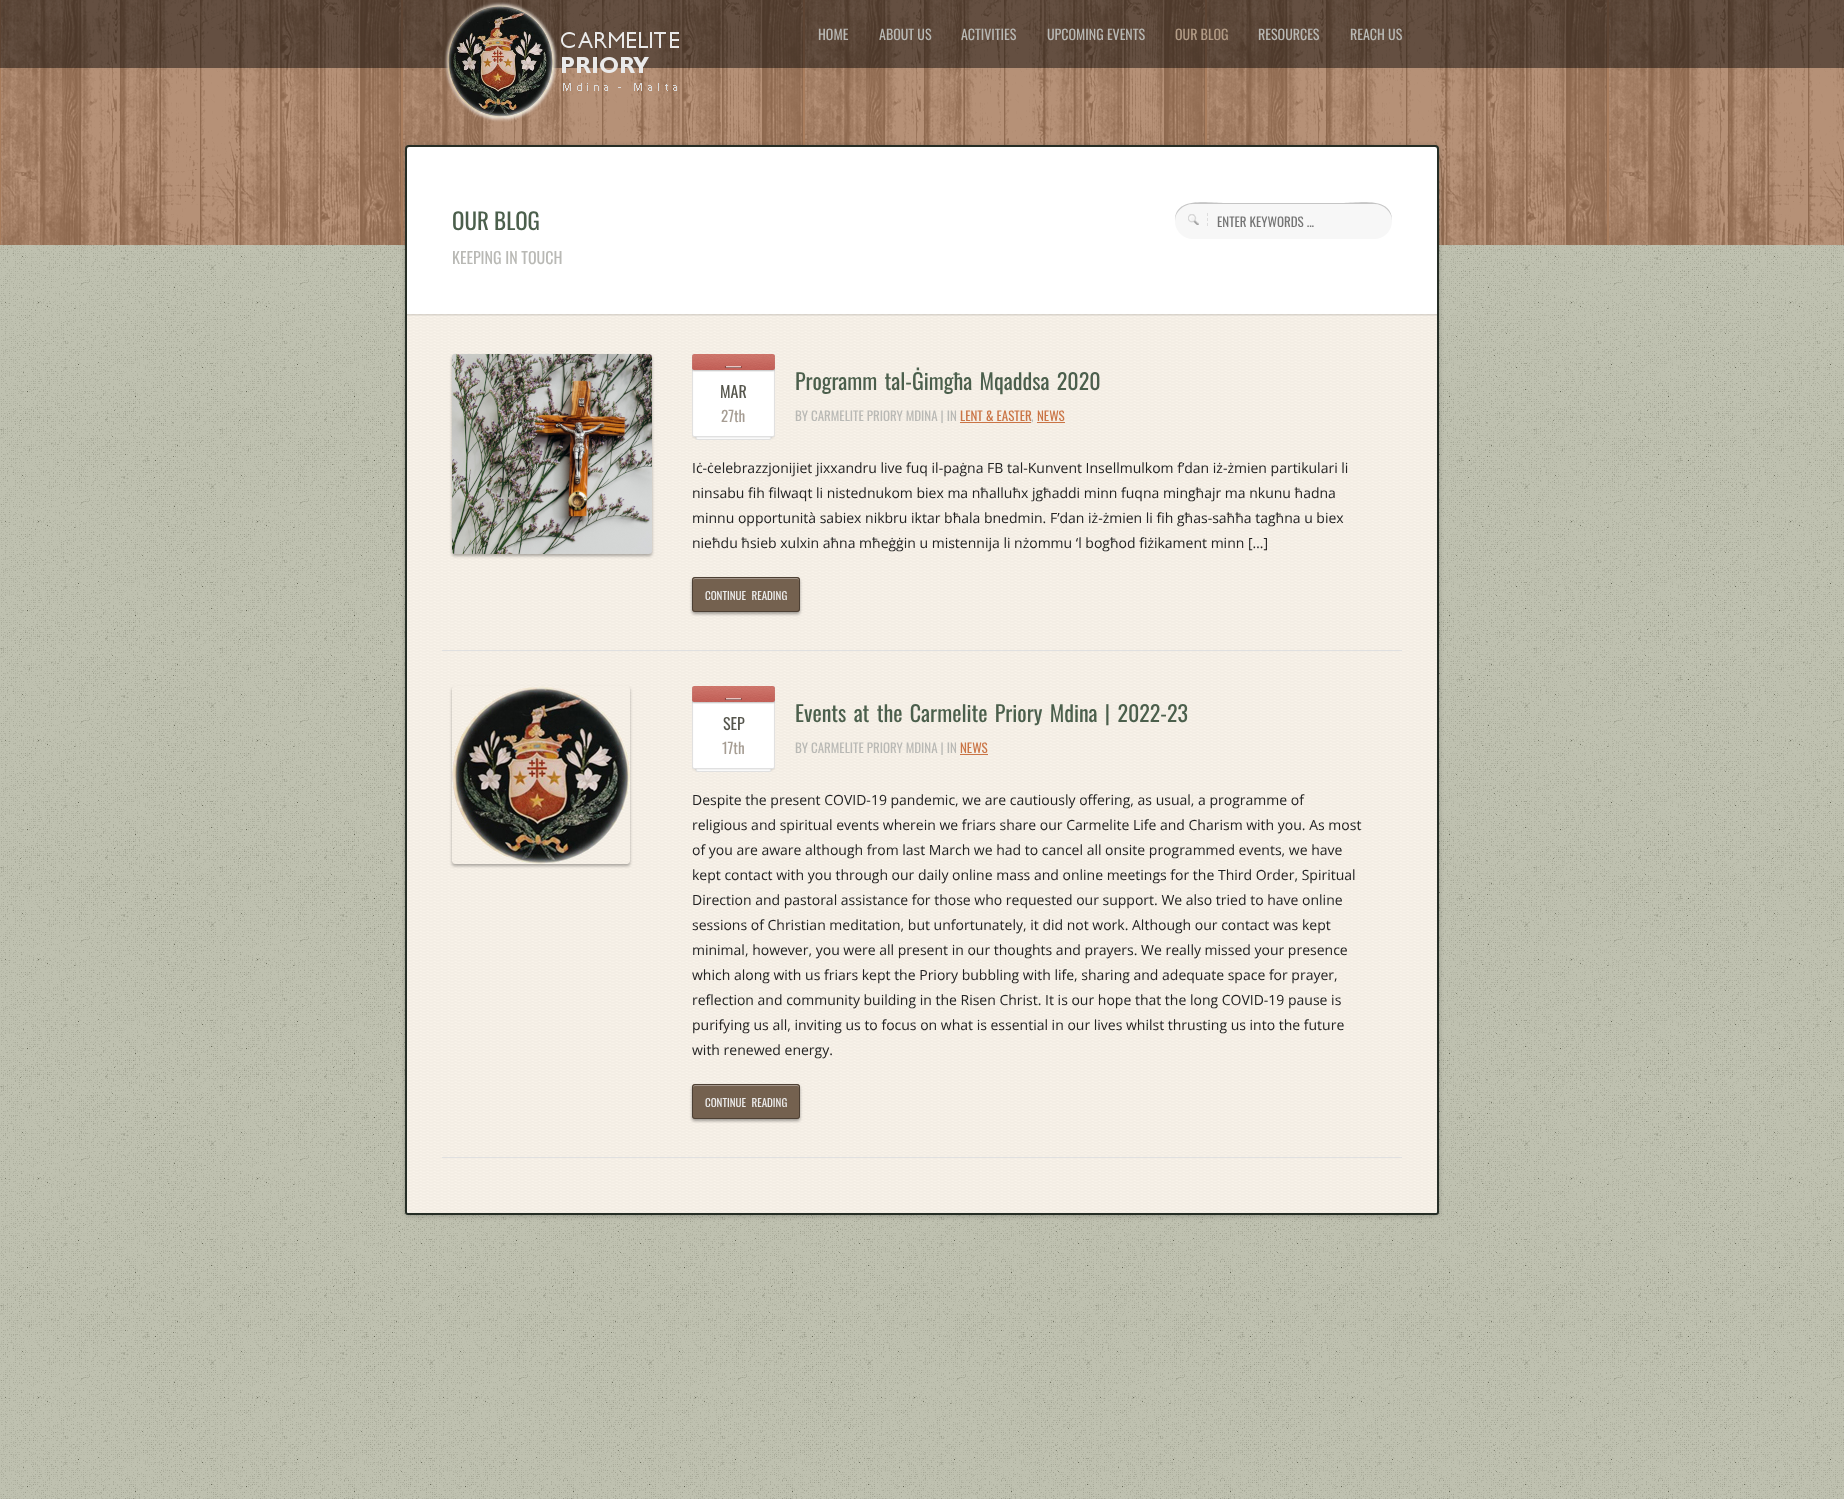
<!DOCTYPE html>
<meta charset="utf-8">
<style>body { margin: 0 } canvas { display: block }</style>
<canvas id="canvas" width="1844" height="1499"></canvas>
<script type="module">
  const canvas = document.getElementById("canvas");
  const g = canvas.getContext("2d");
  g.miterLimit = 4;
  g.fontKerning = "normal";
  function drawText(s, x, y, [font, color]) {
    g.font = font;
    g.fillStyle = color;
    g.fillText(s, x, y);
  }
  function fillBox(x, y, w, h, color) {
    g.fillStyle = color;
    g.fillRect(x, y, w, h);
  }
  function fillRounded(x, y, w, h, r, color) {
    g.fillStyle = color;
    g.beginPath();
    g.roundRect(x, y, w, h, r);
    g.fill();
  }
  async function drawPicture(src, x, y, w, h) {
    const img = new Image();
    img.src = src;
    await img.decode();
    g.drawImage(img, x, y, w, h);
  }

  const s1 = ["14px Oswald", "#B9B9B5"];
  const s2 = ["14px Oswald", "#B39C86"];
  const s3 = ["23px Oswald", "#4B5F4C"];
  const s4 = ["16px Oswald", "#B9B9B5"];
  const s5 = ["13px Oswald", "#757575"];
  const s6 = ["16px Oswald", "#55554C"];
  const s7 = ["15px Oswald", "#A69D93"];
  const s8 = ["22px Oswald", "#4B5F4C"];
  const s9 = ["13px Oswald", "#B9B9B5"];
  const s10 = ["13px Oswald", "#CA7445"];
  const s11 = ["14px Open Sans", "#222222"];
  const s12 = ["11px Oswald", "#EEEEEE"];

  fillBox(0, 0, 1844, 1499, "#9C9F84");
  await drawPicture("pic1.png", 0, 245, 1844, 1254);
  fillBox(0, 0, 1844, 245, "#A97D5D");
  await drawPicture("pic2.png", 1, 0, 1843, 245);
  fillBox(0, 0, 1844, 68, "rgba(0, 0, 0, 0.45)");
  await drawPicture("pic3.png", 444, 2, 235, 120);
  drawText("HOME", 818, 40, s1);
  drawText("ABOUT US", 879, 40, s1);
  drawText("ACTIVITIES", 961, 40, s1);
  drawText("UPCOMING EVENTS", 1047, 40, s1);
  drawText("OUR BLOG", 1175, 40, s2);
  drawText("RESOURCES", 1258, 40, s1);
  drawText("REACH US", 1350, 40, s1);
  g.fillStyle = "rgba(0, 0, 0, 0.2)";
  g.filter = "blur(2.5px)";
  g.beginPath();
  g.roundRect(405, 146, 1034, 1070, 4);
  g.fill();
  g.filter = "none";
  g.fillStyle = "#FFFFFF";
  g.beginPath();
  g.roundRect(406, 146, 1032, 1068, [3, 3, 2, 2]);
  g.fill();
  g.strokeStyle = "#252D25";
  g.lineWidth = 2;
  g.stroke();
  drawText("OUR BLOG", 452, 230, s3);
  drawText("KEEPING IN TOUCH", 452, 264, s4);
  fillRounded(1175, 203, 217, 36, 18, "#F7F7F7");
  await drawPicture("pic4.png", 1188, 213, 20, 13);
  g.fillStyle = "rgba(0, 0, 0, 0.2)";
  g.beginPath();
  g.moveTo(1193, 204);
  g.lineTo(1374, 204);
  g.bezierCurveTo(1384, 204, 1392, 212, 1392, 221);
  g.bezierCurveTo(1393, 196, 1357, 203, 1344, 203);
  g.lineTo(1223, 203);
  g.bezierCurveTo(1210, 203, 1174, 196, 1175, 221);
  g.bezierCurveTo(1175, 212, 1183, 204, 1193, 204);
  g.closePath();
  g.fill();
  drawText("ENTER KEYWORDS ...", 1217, 227, s5);
  g.fillStyle = "#F9F3EA";
  g.beginPath();
  g.roundRect(407, 314, 1030, 899, [0, 0, 3, 3]);
  g.fill();
  await drawPicture("pic6.png", 407, 314, 1030, 899);
  await drawPicture("pic5.png", 407, 314, 1030, 2);
  fillBox(442, 650, 960, 1, "#E0E0E0");
  g.fillStyle = "rgba(0, 0, 0, 0.3)";
  g.filter = "blur(1.5px)";
  g.beginPath();
  g.roundRect(452, 356, 200, 200, 3);
  g.fill();
  g.filter = "none";
  await drawPicture("pic7.png", 452, 354, 200, 200);
  await drawPicture("pic8.png", 692, 354, 83, 86);
  drawText("MAR", 720, 398, s6);
  drawText("27th", 721, 422, s7);
  g.wordSpacing = "2.25px";
  drawText("Programm tal-Ġimgħa Mqaddsa 2020", 795, 390, s8);
  g.wordSpacing = "0px";
  drawText("BY CARMELITE PRIORY MDINA | IN", 795, 421, s9);
  drawText("LENT & EASTER", 960, 421, s10);
  drawText(",", 1031, 421, s9);
  fillBox(960, 422, 71, 1, "#CA7445");
  fillBox(1037, 422, 28, 1, "#CA7445");
  drawText("NEWS", 1037, 421, s10);
  drawText("Iċ-ċelebrazzjonijiet jixxandru live fuq il-paġna FB tal-Kunvent Insellmulkom f’dan iż-żmien partikulari li", 692, 473, s11);
  drawText("ninsabu fih filwaqt li nistednukom biex ma nħalluħx jgħaddi minn fuqna mingħajr ma nkunu ħadna", 692, 498, s11);
  drawText("minnu opportunità sabiex nikbru iktar bħala bnedmin. F’dan iż-żmien li fih għas-saħħa tagħna u biex", 692, 523, s11);
  drawText("nieħdu ħsieb xulxin aħna mħeġġin u mistennija li nżommu ‘l bogħod fiżikament minn […]", 692, 548, s11);
  g.fillStyle = "rgba(0, 0, 0, 0.35)";
  g.filter = "blur(1.5px)";
  g.beginPath();
  g.roundRect(692, 579, 108, 35, 3);
  g.fill();
  g.filter = "none";
  fillRounded(692, 577, 108, 35, 3, "#74614F");
  g.fillStyle = "#A5988D";
  g.beginPath();
  g.moveTo(695, 579);
  g.lineTo(797, 579);
  g.bezierCurveTo(798, 579, 799, 580, 799, 581);
  g.bezierCurveTo(799, 580, 799, 578, 797, 578);
  g.lineTo(695, 578);
  g.bezierCurveTo(693, 578, 693, 580, 693, 581);
  g.bezierCurveTo(693, 580, 694, 579, 695, 579);
  g.closePath();
  g.fill();
  g.beginPath();
  g.roundRect(692.5, 577.5, 107, 34, 2.5);
  g.strokeStyle = "#4D4034";
  g.lineWidth = 1;
  g.stroke();
  g.wordSpacing = "3px";
  drawText("CONTINUE READING", 705, 600, s12);
  fillBox(442, 1157, 960, 1, "#E0E0E0");
  g.save();
  g.beginPath();
  g.moveTo(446, 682);
  g.lineTo(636, 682);
  g.lineTo(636, 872);
  g.lineTo(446, 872);
  g.closePath();
  g.moveTo(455, 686);
  g.lineTo(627, 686);
  g.bezierCurveTo(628.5, 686, 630, 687.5, 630, 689);
  g.lineTo(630, 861);
  g.bezierCurveTo(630, 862.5, 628.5, 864, 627, 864);
  g.lineTo(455, 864);
  g.bezierCurveTo(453.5, 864, 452, 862.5, 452, 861);
  g.lineTo(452, 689);
  g.bezierCurveTo(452, 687.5, 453.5, 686, 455, 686);
  g.closePath();
  g.clip("evenodd");
  g.fillStyle = "rgba(0, 0, 0, 0.3)";
  g.filter = "blur(1.5px)";
  g.beginPath();
  g.roundRect(452, 688, 178, 178, 3);
  g.fill();
  g.filter = "none";
  g.restore();
  await drawPicture("pic9.png", 452, 686, 178, 178);
  await drawPicture("pic10.png", 692, 686, 83, 86);
  g.wordSpacing = "0px";
  drawText("SEP", 723, 730, s6);
  drawText("17th", 722, 754, s7);
  g.wordSpacing = "2.25px";
  drawText("Events at the Carmelite Priory Mdina | 2022-23", 795, 722, s8);
  g.wordSpacing = "0px";
  drawText("BY CARMELITE PRIORY MDINA | IN", 795, 753, s9);
  drawText("NEWS", 960, 753, s10);
  fillBox(960, 754, 28, 1, "#CA7445");
  drawText("Despite the present COVID-19 pandemic, we are cautiously offering, as usual, a programme of", 692, 805, s11);
  drawText("religious and spiritual events wherein we friars share our Carmelite Life and Charism with you. As most", 692, 830, s11);
  drawText("of you are aware although from last March we had to cancel all onsite programmed events, we have", 692, 855, s11);
  drawText("kept contact with you through our daily online mass and online meetings for the Third Order, Spiritual", 692, 880, s11);
  drawText("Direction and pastoral assistance for those who requested our support. We also tried to have online", 692, 905, s11);
  drawText("sessions of Christian meditation, but unfortunately, it did not work. Although our contact was kept", 692, 930, s11);
  drawText("minimal, however, you were all present in our thoughts and prayers. We really missed your presence", 692, 955, s11);
  drawText("which along with us friars kept the Priory bubbling with life, sharing and adequate space for prayer,", 692, 980, s11);
  drawText("reflection and community building in the Risen Christ. It is our hope that the long COVID-19 pause is", 692, 1005, s11);
  drawText("purifying us all, inviting us to focus on what is essential in our lives whilst thrusting us into the future", 692, 1030, s11);
  drawText("with renewed energy.", 692, 1055, s11);
  g.fillStyle = "rgba(0, 0, 0, 0.35)";
  g.filter = "blur(1.5px)";
  g.beginPath();
  g.roundRect(692, 1086, 108, 35, 3);
  g.fill();
  g.filter = "none";
  fillRounded(692, 1084, 108, 35, 3, "#74614F");
  g.fillStyle = "#A5988D";
  g.beginPath();
  g.moveTo(695, 1086);
  g.lineTo(797, 1086);
  g.bezierCurveTo(798, 1086, 799, 1087, 799, 1088);
  g.bezierCurveTo(799, 1087, 799, 1085, 797, 1085);
  g.lineTo(695, 1085);
  g.bezierCurveTo(693, 1085, 693, 1087, 693, 1088);
  g.bezierCurveTo(693, 1087, 694, 1086, 695, 1086);
  g.closePath();
  g.fill();
  g.beginPath();
  g.roundRect(692.5, 1084.5, 107, 34, 2.5);
  g.stroke();
  g.wordSpacing = "3px";
  drawText("CONTINUE READING", 705, 1107, s12);
</script>
